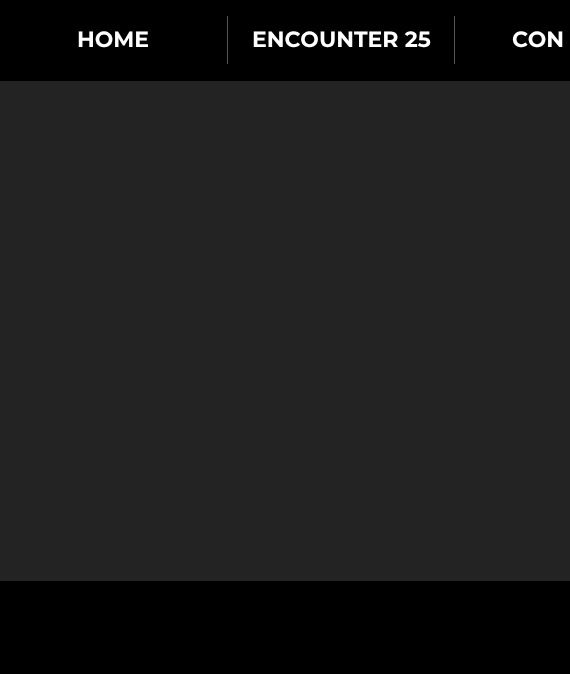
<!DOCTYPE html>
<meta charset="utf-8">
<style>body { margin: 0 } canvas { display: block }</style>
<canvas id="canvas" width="570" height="674"></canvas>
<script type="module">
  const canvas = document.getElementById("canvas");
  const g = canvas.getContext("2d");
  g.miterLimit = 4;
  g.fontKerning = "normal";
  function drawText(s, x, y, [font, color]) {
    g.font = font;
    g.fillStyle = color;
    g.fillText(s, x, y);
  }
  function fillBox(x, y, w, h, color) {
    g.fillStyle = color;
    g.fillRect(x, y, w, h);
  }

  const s1 = ["bold 22px Montserrat", "#FFFFFF"];

  fillBox(0, 0, 570, 674, "#000000");
  drawText("HOME", 77, 47, s1);
  fillBox(227, 16, 1, 48, "#545454");
  drawText("ENCOUNTER 25", 252, 47, s1);
  fillBox(454, 16, 1, 48, "#545454");
  drawText("CON", 512, 47, s1);
  fillBox(0, 81, 570, 500, "#232323");
</script>
